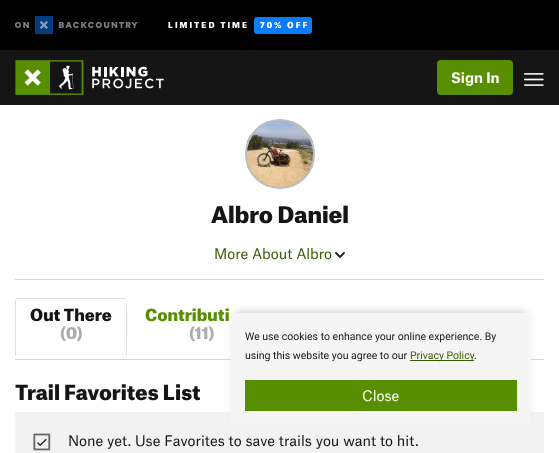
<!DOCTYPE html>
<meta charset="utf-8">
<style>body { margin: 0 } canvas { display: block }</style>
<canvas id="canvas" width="559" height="453"></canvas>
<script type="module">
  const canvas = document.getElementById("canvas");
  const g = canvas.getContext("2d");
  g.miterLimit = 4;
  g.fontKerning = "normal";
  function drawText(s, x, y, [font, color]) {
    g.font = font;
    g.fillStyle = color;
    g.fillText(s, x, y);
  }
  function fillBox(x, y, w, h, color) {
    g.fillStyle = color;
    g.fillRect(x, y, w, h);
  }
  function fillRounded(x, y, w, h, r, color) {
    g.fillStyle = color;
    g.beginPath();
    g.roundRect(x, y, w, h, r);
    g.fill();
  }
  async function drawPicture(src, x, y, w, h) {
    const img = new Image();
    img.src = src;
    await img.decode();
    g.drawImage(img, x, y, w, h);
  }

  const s1 = ["900 8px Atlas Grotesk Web", "#FFFFFF"];
  const s2 = ["bold 14px Atlas Grotesk Web", "#FFFFFF"];
  const s3 = ["900 22px Atlas Grotesk Web", "#151515"];
  const s4 = ["14px Atlas Grotesk Web", "#395C00"];
  const s5 = ["900 16px Atlas Grotesk Web", "#151515"];
  const s6 = ["900 16px Atlas Grotesk Web", "#ACACAC"];
  const s7 = ["900 16px Atlas Grotesk Web", "#588F00"];
  const s8 = ["900 20px Atlas Grotesk Web", "#151515"];
  const s9 = ["14px Atlas Grotesk Web", "#151515"];
  const s10 = ["10.5px Roboto", "#151515"];
  const s11 = ["10.5px Roboto", "#395C00"];
  const s12 = ["14px Atlas Grotesk Web", "#FFFFFF"];

  fillBox(0, 0, 559, 453, "#FFFFFF");
  fillBox(0, 50, 559, 55, "#151515");
  fillBox(0, 0, 559, 50, "#000000");
  await drawPicture("pic1.png", 15, 16, 123, 18);
  g.letterSpacing = "2px";
  drawText("LIMITED TIME", 168, 28, s1);
  fillRounded(254, 17, 58, 17, 3, "#087BFF");
  drawText("70% OFF", 260, 28, s1);
  await drawPicture("pic2.png", 15, 60, 149, 35);
  fillRounded(437, 60, 76, 35, 4, "#588F00");
  g.letterSpacing = "0px";
  drawText("Sign In", 451, 83, s2);
  await drawPicture("pic3.png", 524, 73, 20, 13);
  await drawPicture("pic4.png", 247, 121, 66, 66);
  g.beginPath();
  g.arc(280, 154, 34, 0, Math.PI * 2);
  g.strokeStyle = "#BDBDBD";
  g.lineWidth = 2;
  g.stroke();
  drawText("Albro Daniel", 211, 223, s3);
  drawText("More About Albro", 214, 259, s4);
  await drawPicture("pic5.png", 335, 252, 10, 6);
  fillBox(15, 279, 529, 1, "#D7D7D7");
  fillBox(15, 359, 529, 1, "#D7D7D7");
  g.fillStyle = "#DDDDDD";
  g.beginPath();
  g.moveTo(17, 298);
  g.lineTo(16, 299);
  g.lineTo(126, 299);
  g.lineTo(125, 298);
  g.closePath();
  g.fill();
  g.beginPath();
  g.moveTo(127, 356);
  g.bezierCurveTo(127, 350, 128, 300, 126, 299);
  g.lineTo(126, 355);
  g.closePath();
  g.fill();
  g.beginPath();
  g.moveTo(15, 356);
  g.lineTo(16, 355);
  g.lineTo(16, 299);
  g.lineTo(15, 300);
  g.closePath();
  g.fill();
  drawText("Out There", 30, 321, s5);
  drawText("(0)", 60, 339, s6);
  drawText("Contributi", 145, 321, s7);
  drawText("(11)", 189, 339, s6);
  drawText("Trail Favorites List", 15, 400, s8);
  fillBox(15, 412, 529, 41, "#F2F2F2");
  await drawPicture("pic6.png", 33, 433, 18, 18);
  drawText("None yet. Use Favorites to save trails you want to hit.", 68, 446, s9);
  g.fillStyle = "rgba(0, 0, 0, 0.25)";
  g.filter = "blur(5px)";
  g.beginPath();
  g.rect(236, 313, 290, 102);
  g.fill();
  g.filter = "none";
  fillBox(231, 313, 300, 112, "#F5F5F5");
  drawText("We use cookies to enhance your online experience. By", 245, 340, s10);
  drawText("using this website you agree to our", 245, 359, s10);
  fillBox(410, 360, 64, 1, "#395C00");
  drawText("Privacy Policy", 410, 359, s11);
  drawText(".", 474, 359, s10);
  fillBox(245, 380, 272, 31, "#588F00");
  drawText("Close", 362, 401, s12);
</script>
